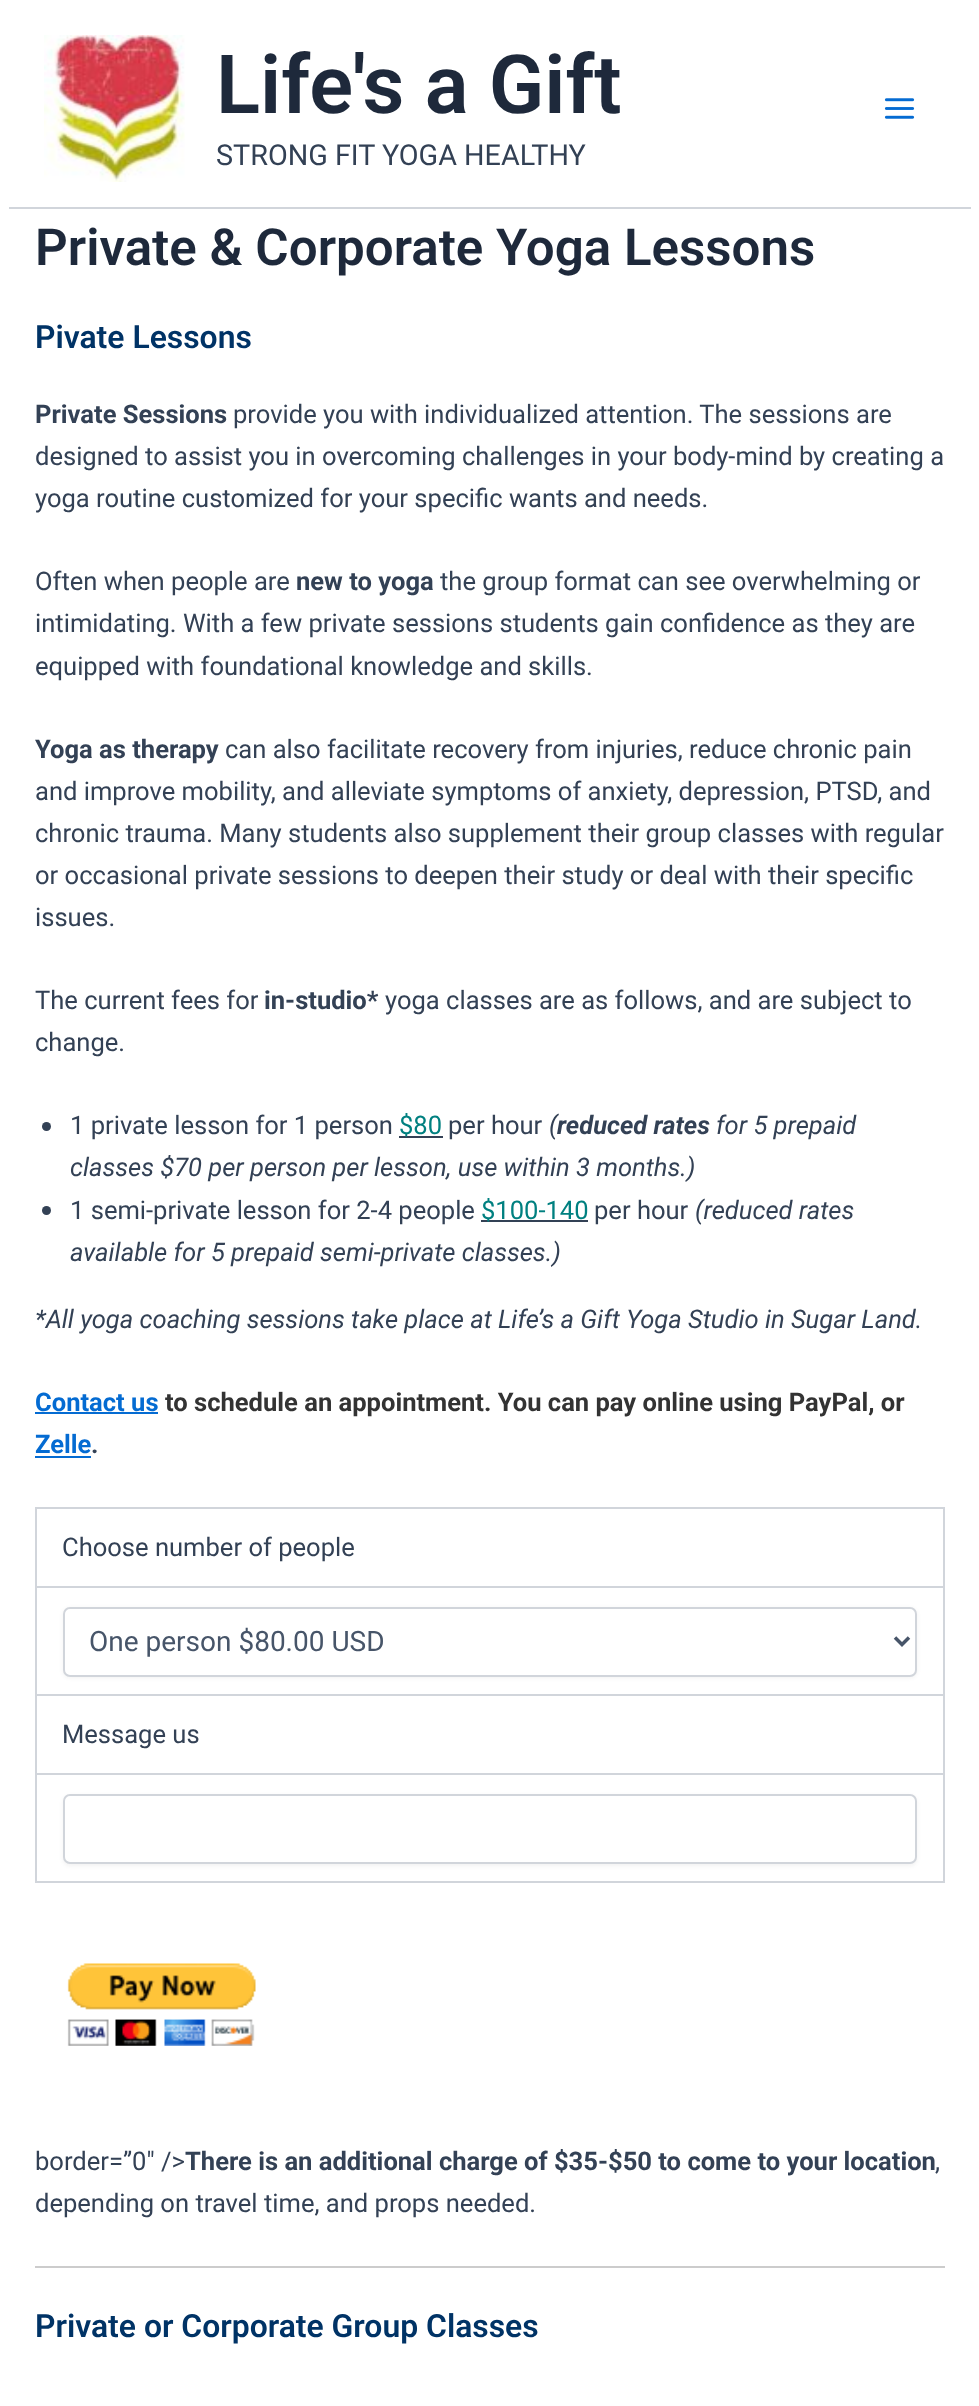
<!DOCTYPE html>
<meta charset="utf-8">
<style>body { margin: 0 } canvas { display: block }</style>
<canvas id="canvas" width="979" height="2406"></canvas>
<script type="module">
  const canvas = document.getElementById("canvas");
  const g = canvas.getContext("2d");
  g.miterLimit = 4;
  g.fontKerning = "normal";
  function drawText(s, x, y, [font, color]) {
    g.font = font;
    g.fillStyle = color;
    g.fillText(s, x, y);
  }
  function fillBox(x, y, w, h, color) {
    g.fillStyle = color;
    g.fillRect(x, y, w, h);
  }
  async function drawPicture(src, x, y, w, h) {
    const img = new Image();
    img.src = src;
    await img.decode();
    g.drawImage(img, x, y, w, h);
  }

  const s1 = ["600 81.5px Roboto", "#1E293B"];
  const s2 = ["28.75px Roboto", "#334155"];
  const s3 = ["600 51.1px Roboto", "#1E293B"];
  const s4 = ["600 31.9px Roboto", "#003366"];
  const s5 = ["bold 25.55px Roboto", "#334155"];
  const s6 = ["25.55px Roboto", "#334155"];
  const s7 = ["25.55px Roboto", "#008080"];
  const s8 = ["italic 25.55px Roboto", "#334155"];
  const s9 = ["italic bold 25.55px Roboto", "#334155"];
  const s10 = ["bold 25.55px Roboto", "#046BD2"];
  const s11 = ["bold 25.55px Roboto", "#333333"];
  const s12 = ["28px Roboto", "#475569"];

  fillBox(0, 0, 979, 2406, "#FFFFFF");
  fillBox(9, 207, 962, 2, "#D1D5DB");
  await drawPicture("pic1.png", 44, 35, 141, 147);
  drawText("Life's a Gift", 216, 113, s1);
  drawText("STRONG FIT YOGA HEALTHY", 216, 165, s2);
  await drawPicture("pic2.png", 884, 98, 31, 21);
  drawText("Private & Corporate Yoga Lessons", 35, 265, s3);
  drawText("Pivate Lessons", 35, 348, s4);
  drawText("Private Sessions", 35, 423, s5);
  drawText("provide you with individualized attention. The sessions are", 233, 423, s6);
  drawText("designed to assist you in overcoming challenges in your body-mind by creating a", 35, 465, s6);
  drawText("yoga routine customized for your specific wants and needs.", 35, 507, s6);
  drawText("Often when people are", 35, 590, s6);
  drawText("new to yoga", 296, 590, s5);
  drawText("the group format can see overwhelming or", 440, 590, s6);
  drawText("intimidating. With a few private sessions students gain confidence as they are", 35, 632, s6);
  drawText("equipped with foundational knowledge and skills.", 35, 675, s6);
  drawText("Yoga as therapy", 35, 758, s5);
  drawText("can also facilitate recovery from injuries, reduce chronic pain", 225, 758, s6);
  drawText("and improve mobility, and alleviate symptoms of anxiety, depression, PTSD, and", 35, 800, s6);
  drawText("chronic trauma. Many students also supplement their group classes with regular", 35, 842, s6);
  drawText("or occasional private sessions to deepen their study or deal with their specific", 35, 884, s6);
  drawText("issues.", 35, 926, s6);
  drawText("The current fees for", 35, 1009, s6);
  drawText("in-studio*", 264, 1009, s5);
  drawText("yoga classes are as follows, and are subject to", 385, 1009, s6);
  drawText("change.", 35, 1051, s6);
  g.beginPath();
  g.arc(46.5, 1126.5, 4.5, 0, Math.PI * 2);
  g.fill();
  drawText("1 private lesson for 1 person", 70, 1134, s6);
  fillBox(399, 1136, 44, 2, "#334155");
  drawText("$80", 399, 1134, s7);
  drawText("per hour", 448, 1134, s6);
  drawText("(", 549, 1134, s8);
  drawText("reduced rates", 557, 1134, s9);
  drawText("for 5 prepaid", 716, 1134, s8);
  drawText("classes $70 per person per lesson, use within 3 months.)", 70, 1176, s8);
  g.beginPath();
  g.arc(46.5, 1210.5, 4.5, 0, Math.PI * 2);
  g.fill();
  drawText("1 semi-private lesson for 2-4 people", 70, 1219, s6);
  fillBox(481, 1220, 107, 2, "#334155");
  drawText("$100-140", 481, 1219, s7);
  drawText("per hour", 594, 1219, s6);
  drawText("(reduced rates", 695, 1219, s8);
  drawText("available for 5 prepaid semi-private classes.)", 70, 1261, s8);
  drawText("*All yoga coaching sessions take place at Life’s a Gift Yoga Studio in Sugar Land.", 35, 1328, s8);
  drawText("Contact us", 35, 1411, s10);
  fillBox(35, 1412, 123, 2, "#046BD2");
  drawText("to schedule an appointment. You can pay online using PayPal, or", 165, 1411, s11);
  drawText("Zelle", 35, 1453, s10);
  drawText(".", 91, 1453, s5);
  fillBox(35, 1456, 56, 2, "#046BD2");
  fillBox(35, 1507, 910, 2, "#D1D5DB");
  fillBox(35, 1507, 2, 376, "#D1D5DB");
  fillBox(943, 1509, 2, 78, "#D1D5DB");
  fillBox(37, 1586, 908, 2, "#D1D5DB");
  drawText("Choose number of people", 62, 1556, s6);
  fillBox(943, 1587, 2, 296, "#D1D5DB");
  fillBox(37, 1694, 908, 2, "#D1D5DB");
  g.fillStyle = "rgba(0, 0, 0, 0.05)";
  g.filter = "blur(2px)";
  g.beginPath();
  g.roundRect(63, 1608, 854, 70, 7);
  g.fill();
  g.filter = "none";
  g.fillStyle = "#FFFFFF";
  g.beginPath();
  g.roundRect(64, 1608, 852, 68, 6);
  g.fill();
  g.strokeStyle = "#D1D5DB";
  g.lineWidth = 2;
  g.stroke();
  g.beginPath();
  g.moveTo(895, 1637.5);
  g.lineTo(902, 1644.5);
  g.lineTo(909, 1637.5);
  g.strokeStyle = "#475569";
  g.lineWidth = 3.5;
  g.stroke();
  drawText("One person $80.00 USD", 89, 1651, s12);
  fillBox(37, 1773, 908, 2, "#D1D5DB");
  drawText("Message us", 62, 1743, s6);
  fillBox(37, 1881, 908, 2, "#D1D5DB");
  g.fillStyle = "rgba(0, 0, 0, 0.05)";
  g.filter = "blur(2px)";
  g.beginPath();
  g.roundRect(63, 1796, 854, 70, 7);
  g.fill();
  g.filter = "none";
  g.fillStyle = "#FFFFFF";
  g.beginPath();
  g.roundRect(64, 1795, 852, 68, 6);
  g.fill();
  g.strokeStyle = "#D1D5DB";
  g.lineWidth = 2;
  g.stroke();
  await drawPicture("pic3.png", 67, 1963, 189, 83);
  drawText("border=”0″ />", 35, 2170, s6);
  drawText("There is an additional charge of $35-$50 to come to your location", 185, 2170, s5);
  drawText(",", 935, 2170, s6);
  drawText("depending on travel time, and props needed.", 35, 2212, s6);
  fillBox(35, 2266, 910, 2, "#CCCCCC");
  drawText("Private or Corporate Group Classes", 35, 2337, s4);
</script>
